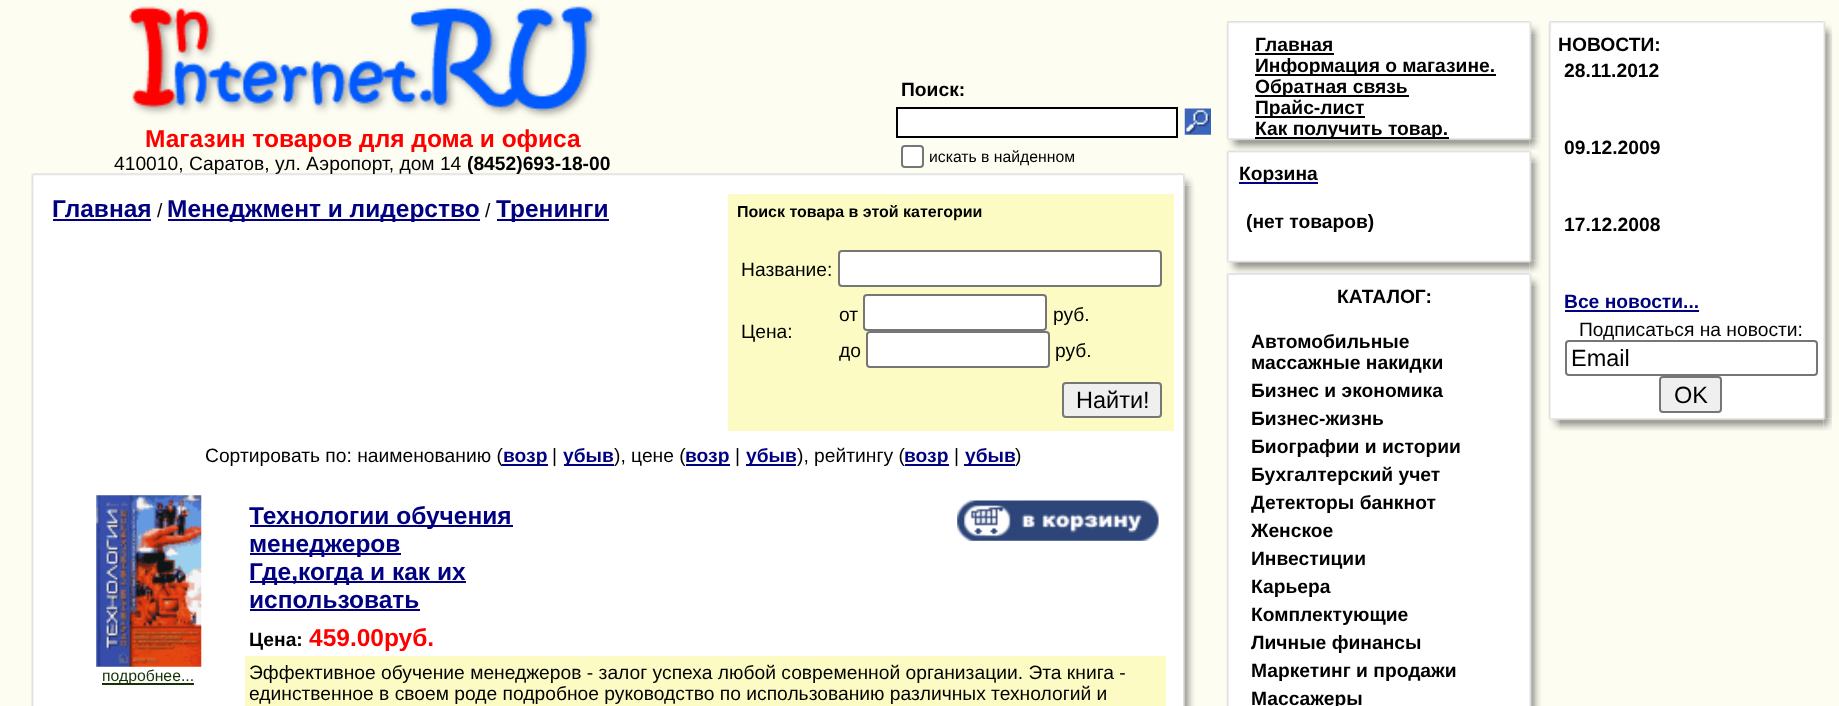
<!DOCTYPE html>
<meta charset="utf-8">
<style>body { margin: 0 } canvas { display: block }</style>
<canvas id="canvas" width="1839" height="706"></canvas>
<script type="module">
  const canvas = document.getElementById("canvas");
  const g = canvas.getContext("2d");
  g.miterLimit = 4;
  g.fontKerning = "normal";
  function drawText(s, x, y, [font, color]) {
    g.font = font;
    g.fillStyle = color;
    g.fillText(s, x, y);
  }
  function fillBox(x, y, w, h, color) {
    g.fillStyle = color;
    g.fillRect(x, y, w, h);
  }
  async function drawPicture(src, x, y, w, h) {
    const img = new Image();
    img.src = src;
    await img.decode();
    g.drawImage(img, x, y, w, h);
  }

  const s1 = ["bold 24.5px Liberation Sans", "#FF0000"];
  const s2 = ["19.25px Liberation Sans", "#000000"];
  const s3 = ["bold 19.25px Liberation Sans", "#000000"];
  const s4 = ["15.75px Liberation Sans", "#000000"];
  const s5 = ["bold 24.5px Liberation Sans", "#000080"];
  const s6 = ["bold 16px Liberation Sans", "#000000"];
  const s7 = ["23.5px Liberation Sans", "#000000"];
  const s8 = ["bold 19.25px Liberation Sans", "#000080"];
  const s9 = ["15.75px Liberation Sans", "#163106"];

  fillBox(0, 0, 1839, 706, "#FDFDF2");
  await drawPicture("pic1.png", 129, 5, 471, 114);
  drawText("Магазин товаров для дома и офиса", 145, 147, s1);
  await drawPicture("pic4.png", 44, 173, 1139, 13);
  drawText("410010, Саратов, ул. Аэропорт, дом 14", 114, 170, s2);
  drawText("(8452)693-18-00", 467, 170, s3);
  drawText("Поиск:", 901, 96, s3);
  g.fillStyle = "#FFFFFF";
  g.beginPath();
  g.rect(897, 108, 280, 29);
  g.fill();
  g.strokeStyle = "#000000";
  g.lineWidth = 2;
  g.stroke();
  await drawPicture("pic2.png", 1184, 108, 27, 27);
  g.beginPath();
  g.roundRect(902, 146, 21, 21, 3);
  g.fill();
  g.strokeStyle = "#767676";
  g.stroke();
  drawText("искать в найденном", 929, 162, s4);
  await drawPicture("pic3.png", 31, 173, 13, 13);
  await drawPicture("pic5.png", 1183, 173, 11, 13);
  await drawPicture("pic6.png", 31, 185, 13, 521);
  fillBox(44, 186, 1139, 520, "#FFFFFF");
  drawText("Главная", 52, 217, s5);
  fillBox(53, 219, 98, 2, "#000080");
  drawText("/", 157, 217, s2);
  fillBox(168, 219, 312, 2, "#000080");
  drawText("Менеджмент и лидерство", 167, 217, s5);
  drawText("/", 485, 217, s2);
  fillBox(497, 219, 112, 2, "#000080");
  drawText("Тренинги", 496, 217, s5);
  fillBox(728, 194, 446, 237, "#FBFBC3");
  drawText("Поиск товара в этой категории", 737, 217, s6);
  drawText("Название:", 741, 276, s2);
  g.fillStyle = "#FFFFFF";
  g.beginPath();
  g.roundRect(839, 251, 322, 35, 3);
  g.fill();
  g.stroke();
  drawText("Цена:", 741, 338, s2);
  drawText("от", 839, 321, s2);
  g.fillStyle = "#FFFFFF";
  g.beginPath();
  g.roundRect(864, 295, 182, 35, 3);
  g.fill();
  g.stroke();
  drawText("руб.", 1053, 321, s2);
  drawText("до", 839, 357, s2);
  g.fillStyle = "#FFFFFF";
  g.beginPath();
  g.roundRect(867, 332, 182, 35, 3);
  g.fill();
  g.stroke();
  drawText("руб.", 1055, 357, s2);
  g.fillStyle = "#EFEFEF";
  g.beginPath();
  g.roundRect(1063, 383, 98, 34, 3);
  g.fill();
  g.stroke();
  drawText("Найти!", 1076, 408, s7);
  drawText("Сортировать по: наименованию (", 205, 462, s2);
  fillBox(502, 464, 46, 2, "#000080");
  drawText("возр", 503, 462, s8);
  drawText("|", 552, 462, s2);
  fillBox(564, 464, 50, 2, "#000080");
  drawText("убыв", 563, 462, s8);
  drawText("), цене (", 614, 462, s2);
  fillBox(686, 464, 44, 2, "#000080");
  drawText("возр", 685, 462, s8);
  drawText("|", 735, 462, s2);
  fillBox(746, 464, 50, 2, "#000080");
  drawText("убыв", 746, 462, s8);
  drawText("), рейтингу (", 797, 462, s2);
  fillBox(905, 464, 44, 2, "#000080");
  drawText("возр", 904, 462, s8);
  drawText("|", 954, 462, s2);
  fillBox(964, 464, 51, 2, "#000080");
  drawText("убыв", 965, 462, s8);
  drawText(")", 1015, 462, s2);
  await drawPicture("pic7.png", 96, 495, 106, 172);
  fillBox(102, 683, 92, 2, "#163106");
  drawText("подробнее...", 102, 681, s9);
  fillBox(250, 525, 263, 2, "#000080");
  drawText("Технологии обучения", 249, 524, s5);
  fillBox(250, 553, 151, 2, "#000080");
  drawText("менеджеров", 249, 552, s5);
  fillBox(250, 581, 216, 2, "#000080");
  drawText("Где,когда и как их", 249, 580, s5);
  drawText("использовать", 249, 608, s5);
  fillBox(250, 609, 170, 2, "#000080");
  await drawPicture("pic8.png", 957, 500, 202, 41);
  drawText("Цена:", 249, 646, s3);
  drawText("459.00руб.", 309, 646, s1);
  fillBox(245, 656, 921, 50, "#FBFBC3");
  drawText("Эффективное обучение менеджеров - залог успеха любой современной организации. Эта книга -", 249, 679, s2);
  drawText("единственное в своем роде подробное руководство по использованию различных технологий и", 249, 700, s2);
  await drawPicture("pic9.png", 1183, 185, 12, 521);
  await drawPicture("pic10.png", 1226, 21, 13, 13);
  await drawPicture("pic11.png", 1239, 21, 291, 12);
  await drawPicture("pic12.png", 1529, 21, 12, 13);
  await drawPicture("pic13.png", 1226, 33, 13, 106);
  fillBox(1239, 33, 291, 105, "#FFFFFF");
  drawText("Главная", 1255, 51, s3);
  fillBox(1255, 53, 79, 2, "#000000");
  fillBox(1255, 74, 241, 2, "#000000");
  drawText("Информация о магазине.", 1255, 72, s3);
  fillBox(1255, 95, 154, 2, "#000000");
  drawText("Обратная связь", 1255, 93, s3);
  fillBox(1255, 116, 110, 2, "#000000");
  drawText("Прайс-лист", 1255, 114, s3);
  await drawPicture("pic14.png", 1529, 33, 13, 106);
  await drawPicture("pic16.png", 1239, 138, 291, 13);
  fillBox(1255, 137, 194, 2, "#000000");
  drawText("Как получить товар.", 1255, 135, s3);
  await drawPicture("pic15.png", 1226, 138, 13, 13);
  await drawPicture("pic17.png", 1529, 138, 13, 13);
  await drawPicture("pic18.png", 1226, 150, 13, 13);
  await drawPicture("pic19.png", 1239, 150, 291, 13);
  await drawPicture("pic20.png", 1529, 150, 12, 13);
  await drawPicture("pic21.png", 1226, 163, 13, 98);
  fillBox(1239, 163, 291, 98, "#FFFFFF");
  fillBox(1239, 182, 79, 2, "#000080");
  drawText("Корзина", 1239, 180, s3);
  drawText("(нет товаров)", 1246, 228, s3);
  await drawPicture("pic22.png", 1529, 162, 13, 99);
  await drawPicture("pic23.png", 1226, 260, 13, 13);
  await drawPicture("pic24.png", 1239, 260, 291, 13);
  await drawPicture("pic25.png", 1529, 260, 13, 13);
  await drawPicture("pic10.png", 1226, 273, 13, 13);
  await drawPicture("pic11.png", 1239, 273, 291, 12);
  await drawPicture("pic26.png", 1529, 273, 12, 13);
  await drawPicture("pic27.png", 1226, 285, 13, 421);
  fillBox(1239, 285, 291, 421, "#FFFFFF");
  drawText("КАТАЛОГ:", 1337, 303, s3);
  drawText("Автомобильные", 1251, 348, s3);
  drawText("массажные накидки", 1251, 369, s3);
  drawText("Бизнес и экономика", 1251, 397, s3);
  drawText("Бизнес-жизнь", 1251, 425, s3);
  drawText("Биографии и истории", 1251, 453, s3);
  drawText("Бухгалтерский учет", 1251, 481, s3);
  drawText("Детекторы банкнот", 1251, 509, s3);
  drawText("Женское", 1251, 537, s3);
  drawText("Инвестиции", 1251, 565, s3);
  drawText("Карьера", 1251, 593, s3);
  drawText("Комплектующие", 1251, 621, s3);
  drawText("Личные финансы", 1251, 649, s3);
  drawText("Маркетинг и продажи", 1251, 677, s3);
  drawText("Массажеры", 1251, 705, s3);
  await drawPicture("pic28.png", 1529, 285, 13, 421);
  await drawPicture("pic29.png", 1548, 21, 12, 13);
  await drawPicture("pic30.png", 1559, 21, 265, 12);
  await drawPicture("pic31.png", 1823, 21, 9, 13);
  await drawPicture("pic32.png", 1548, 33, 11, 386);
  fillBox(1559, 33, 265, 385, "#FFFFFF");
  drawText("НОВОСТИ:", 1558, 51, s3);
  drawText("28.11.2012", 1564, 77, s3);
  drawText("09.12.2009", 1564, 154, s3);
  drawText("17.12.2008", 1564, 231, s3);
  drawText("Все новости...", 1564, 308, s8);
  fillBox(1565, 310, 134, 2, "#000080");
  drawText("Подписаться на новости:", 1579, 336, s2);
  g.beginPath();
  g.roundRect(1566, 341, 251, 34, 3);
  g.stroke();
  drawText("Email", 1571, 366, s7);
  g.fillStyle = "#EFEFEF";
  g.beginPath();
  g.roundRect(1660, 377, 61, 35, 3);
  g.fill();
  g.stroke();
  drawText("OK", 1674, 403, s7);
  await drawPicture("pic33.png", 1823, 33, 10, 386);
  await drawPicture("pic34.png", 1548, 418, 12, 13);
  await drawPicture("pic35.png", 1559, 418, 265, 13);
  await drawPicture("pic36.png", 1823, 418, 9, 13);
</script>
